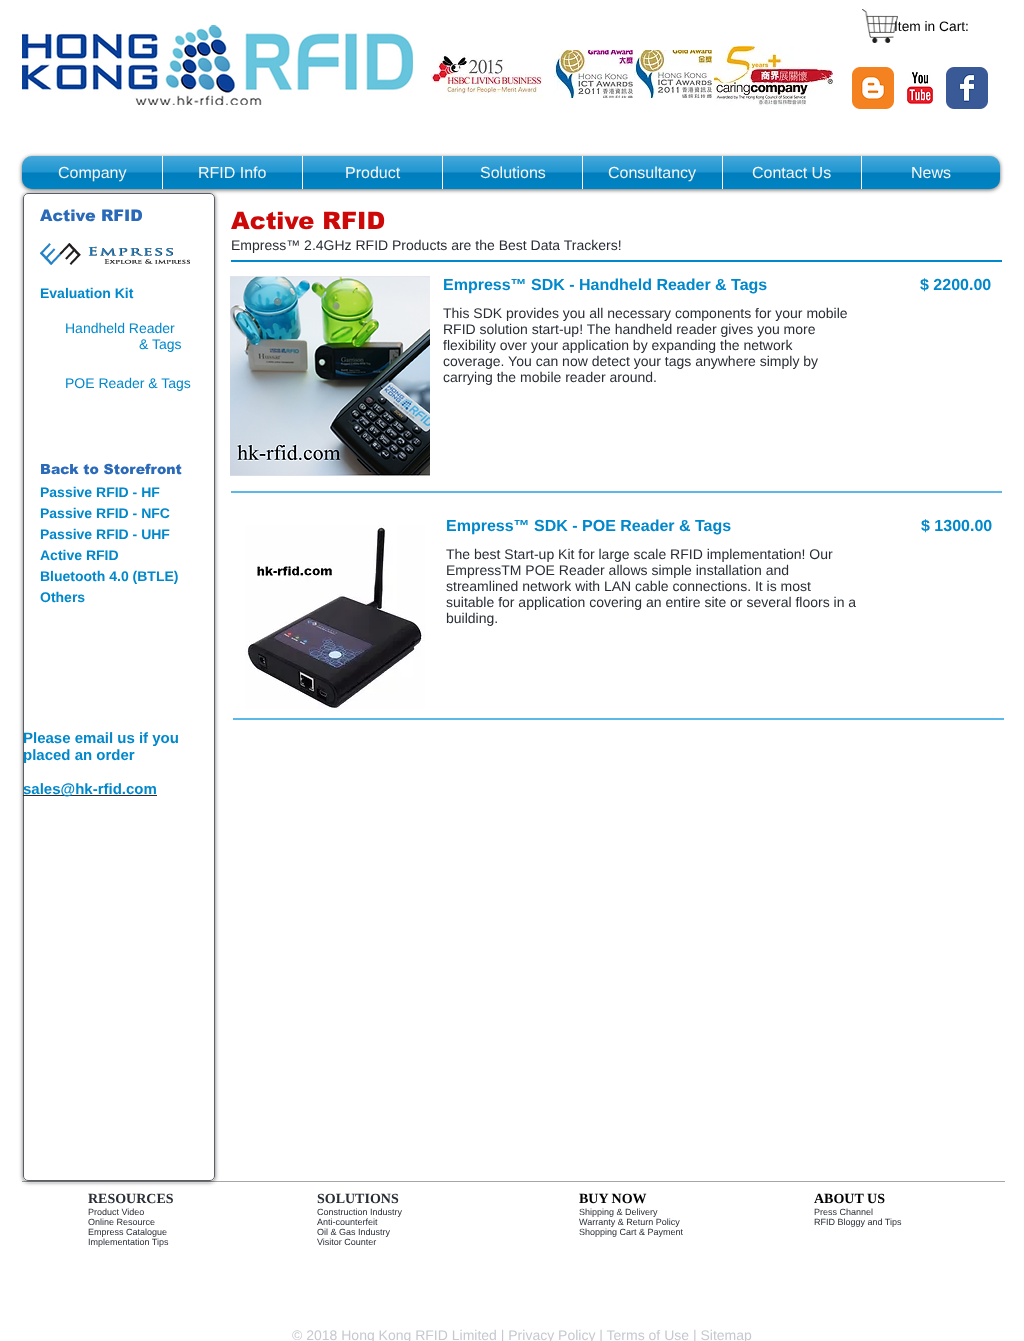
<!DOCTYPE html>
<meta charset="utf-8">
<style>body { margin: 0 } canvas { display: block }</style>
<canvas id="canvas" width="1024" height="1341"></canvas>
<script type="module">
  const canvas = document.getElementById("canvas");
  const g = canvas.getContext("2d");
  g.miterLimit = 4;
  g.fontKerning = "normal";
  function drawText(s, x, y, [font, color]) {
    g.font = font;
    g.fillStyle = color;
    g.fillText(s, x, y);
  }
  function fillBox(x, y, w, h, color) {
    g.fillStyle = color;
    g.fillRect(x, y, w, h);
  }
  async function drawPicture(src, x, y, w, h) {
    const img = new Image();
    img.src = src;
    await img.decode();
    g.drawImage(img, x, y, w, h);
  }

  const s1 = ["13.75px Liberation Sans", "#000000"];
  const s2 = ["16px Liberation Sans", "#FFFFFF"];
  const s3 = ["900 16px arial", "#2A6AB8"];
  const s4 = ["bold 14px Liberation Sans", "#0088CB"];
  const s5 = ["14px Liberation Sans", "#0088CB"];
  const s6 = ["900 14px arial", "#2A6AB8"];
  const s7 = ["900 24px arial", "#CC0808"];
  const s8 = ["14px Liberation Sans", "#282D35"];
  const s9 = ["bold 16px Liberation Sans", "#0088CB"];
  const s10 = ["bold 15px Liberation Sans", "#0088CB"];
  const s11 = ["bold 14px Liberation Serif", "#282D35"];
  const s12 = ["9px Liberation Sans", "#282D35"];
  const s13 = ["bold 14px Liberation Serif", "#000000"];
  const s14 = ["14px Liberation Sans", "#C5C9CF"];

  fillBox(0, 0, 1024, 1341, "#FFFFFF");
  await drawPicture("pic1.png", 22, 25, 391, 80);
  await drawPicture("pic2.png", 430, 54, 114, 44);
  await drawPicture("pic3.png", 554, 50, 79, 48);
  await drawPicture("pic4.png", 634, 50, 78, 48);
  await drawPicture("pic5.png", 714, 46, 119, 60);
  drawText("Item in Cart:", 894, 31, s1);
  await drawPicture("pic6.png", 862, 9, 36, 34);
  await drawPicture("pic7.png", 852, 67, 42, 42);
  await drawPicture("pic8.png", 907, 72, 26, 32);
  await drawPicture("pic9.png", 946, 67, 42, 42);
  g.fillStyle = "rgba(0, 0, 0, 0.6)";
  g.filter = "blur(2px)";
  g.beginPath();
  g.roundRect(22, 157, 978, 33, 10);
  g.fill();
  g.filter = "none";
  await drawPicture("pic10.png", 22, 156, 978, 33);
  g.fillStyle = "#0088CB";
  g.beginPath();
  g.roundRect(22, 156, 140, 33, [10, 0, 0, 10]);
  g.fill();
  drawText("Company", 58, 178, s2);
  await drawPicture("pic11.png", 22, 156, 140, 33);
  fillBox(163, 156, 139, 33, "#0088CB");
  fillBox(162, 156, 1, 33, "#FFFFFF");
  drawText("RFID Info", 198, 178, s2);
  await drawPicture("pic12.png", 163, 156, 139, 33);
  fillBox(303, 156, 139, 33, "#0088CB");
  fillBox(302, 156, 1, 33, "#FFFFFF");
  drawText("Product", 345, 178, s2);
  await drawPicture("pic13.png", 303, 156, 139, 33);
  fillBox(443, 156, 139, 33, "#0088CB");
  fillBox(442, 156, 1, 33, "#FFFFFF");
  drawText("Solutions", 480, 178, s2);
  await drawPicture("pic14.png", 443, 156, 139, 33);
  fillBox(583, 156, 139, 33, "#0088CB");
  fillBox(582, 156, 1, 33, "#FFFFFF");
  drawText("Consultancy", 608, 178, s2);
  await drawPicture("pic15.png", 583, 156, 139, 33);
  fillBox(723, 156, 138, 33, "#0088CB");
  fillBox(722, 156, 1, 33, "#FFFFFF");
  drawText("Contact Us", 752, 178, s2);
  await drawPicture("pic16.png", 723, 156, 138, 33);
  g.fillStyle = "#0088CB";
  g.beginPath();
  g.roundRect(861, 156, 139, 33, [0, 10, 10, 0]);
  g.fill();
  fillBox(861, 156, 1, 33, "#FFFFFF");
  drawText("News", 911, 178, s2);
  await drawPicture("pic17.png", 862, 156, 138, 33);
  g.save();
  g.beginPath();
  g.moveTo(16, 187);
  g.lineTo(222, 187);
  g.lineTo(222, 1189);
  g.lineTo(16, 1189);
  g.closePath();
  g.moveTo(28, 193);
  g.lineTo(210, 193);
  g.bezierCurveTo(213, 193, 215, 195, 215, 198);
  g.lineTo(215, 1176);
  g.bezierCurveTo(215, 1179, 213, 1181, 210, 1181);
  g.lineTo(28, 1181);
  g.bezierCurveTo(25, 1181, 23, 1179, 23, 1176);
  g.lineTo(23, 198);
  g.bezierCurveTo(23, 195, 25, 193, 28, 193);
  g.closePath();
  g.clip("evenodd");
  g.fillStyle = "rgba(0, 0, 0, 0.6)";
  g.filter = "blur(2px)";
  g.beginPath();
  g.roundRect(23, 194, 192, 988, 5);
  g.fill();
  g.filter = "none";
  g.restore();
  g.beginPath();
  g.roundRect(23.5, 193.5, 191, 987, 4.5);
  g.strokeStyle = "#5A5F67";
  g.stroke();
  drawText("Active RFID", 40, 221, s3);
  drawText("Evaluation Kit", 40, 298, s4);
  drawText("Handheld Reader", 65, 333, s5);
  drawText("& Tags", 139, 349, s5);
  drawText("POE Reader & Tags", 65, 388, s5);
  drawText("Back to Storefront", 40, 474, s6);
  drawText("Passive RFID - HF", 40, 497, s4);
  drawText("Passive RFID - NFC", 40, 518, s4);
  drawText("Passive RFID - UHF", 40, 539, s4);
  drawText("Active RFID", 40, 560, s4);
  drawText("Bluetooth 4.0 (BTLE)", 40, 581, s4);
  drawText("Others", 40, 602, s4);
  drawText("Active RFID", 231, 229, s7);
  drawText("Empress™ 2.4GHz RFID Products are the Best Data Trackers!", 231, 250, s8);
  fillBox(231, 260, 771, 2, "#0088CB");
  await drawPicture("pic18.png", 230, 276, 200, 200);
  drawText("Empress™ SDK - Handheld Reader & Tags", 443, 290, s9);
  drawText("$ 2200.00", 920, 290, s9);
  drawText("This SDK provides you all necessary components for your mobile", 443, 318, s8);
  drawText("RFID solution start-up! The handheld reader gives you more", 443, 334, s8);
  drawText("flexibility over your application by expanding the network", 443, 350, s8);
  drawText("coverage. You can now detect your tags anywhere simply by", 443, 366, s8);
  drawText("carrying the mobile reader around.", 443, 382, s8);
  fillBox(231, 491, 771, 2, "#5CB8E8");
  await drawPicture("pic19.png", 245, 525, 180, 184);
  drawText("Empress™ SDK - POE Reader & Tags", 446, 531, s9);
  drawText("$ 1300.00", 921, 531, s9);
  drawText("The best Start-up Kit for large scale RFID implementation! Our", 446, 559, s8);
  drawText("EmpressTM POE Reader allows simple installation and", 446, 575, s8);
  drawText("streamlined network with LAN cable connections. It is most", 446, 591, s8);
  drawText("suitable for application covering an entire site or several floors in a", 446, 607, s8);
  drawText("building.", 446, 623, s8);
  fillBox(233, 718, 771, 2, "#5CB8E8");
  await drawPicture("pic20.png", 40, 243, 150, 22);
  drawText("Please email us if you", 23, 743, s10);
  drawText("placed an order", 23, 760, s10);
  fillBox(23, 795, 134, 1, "#282D35");
  drawText("sales@hk-rfid.com", 23, 794, s10);
  fillBox(22, 1181, 983, 1, "rgba(0, 0, 0, 0.35)");
  fillBox(22, 1182, 194, 1, "rgba(255, 255, 255, 0.35)");
  drawText("RESOURCES", 88, 1203, s11);
  drawText("Product Video", 88, 1215, s12);
  drawText("Online Resource", 88, 1225, s12);
  drawText("Empress Catalogue", 88, 1235, s12);
  drawText("Implementation Tips", 88, 1245, s12);
  drawText("SOLUTIONS", 317, 1203, s11);
  drawText("Construction Industry", 317, 1215, s12);
  drawText("Anti-counterfeit", 317, 1225, s12);
  drawText("Oil & Gas Industry", 317, 1235, s12);
  drawText("Visitor Counter", 317, 1245, s12);
  drawText("BUY NOW", 579, 1203, s13);
  drawText("Shipping & Delivery", 579, 1215, s12);
  drawText("Warranty & Return Policy", 579, 1225, s12);
  drawText("Shopping Cart & Payment", 579, 1235, s12);
  drawText("ABOUT US", 814, 1203, s13);
  drawText("Press Channel", 814, 1215, s12);
  drawText("RFID Bloggy and Tips", 814, 1225, s12);
  drawText("© 2018 Hong Kong RFID Limited | Privacy Policy | Terms of Use | Sitemap", 292, 1340, s14);
</script>
